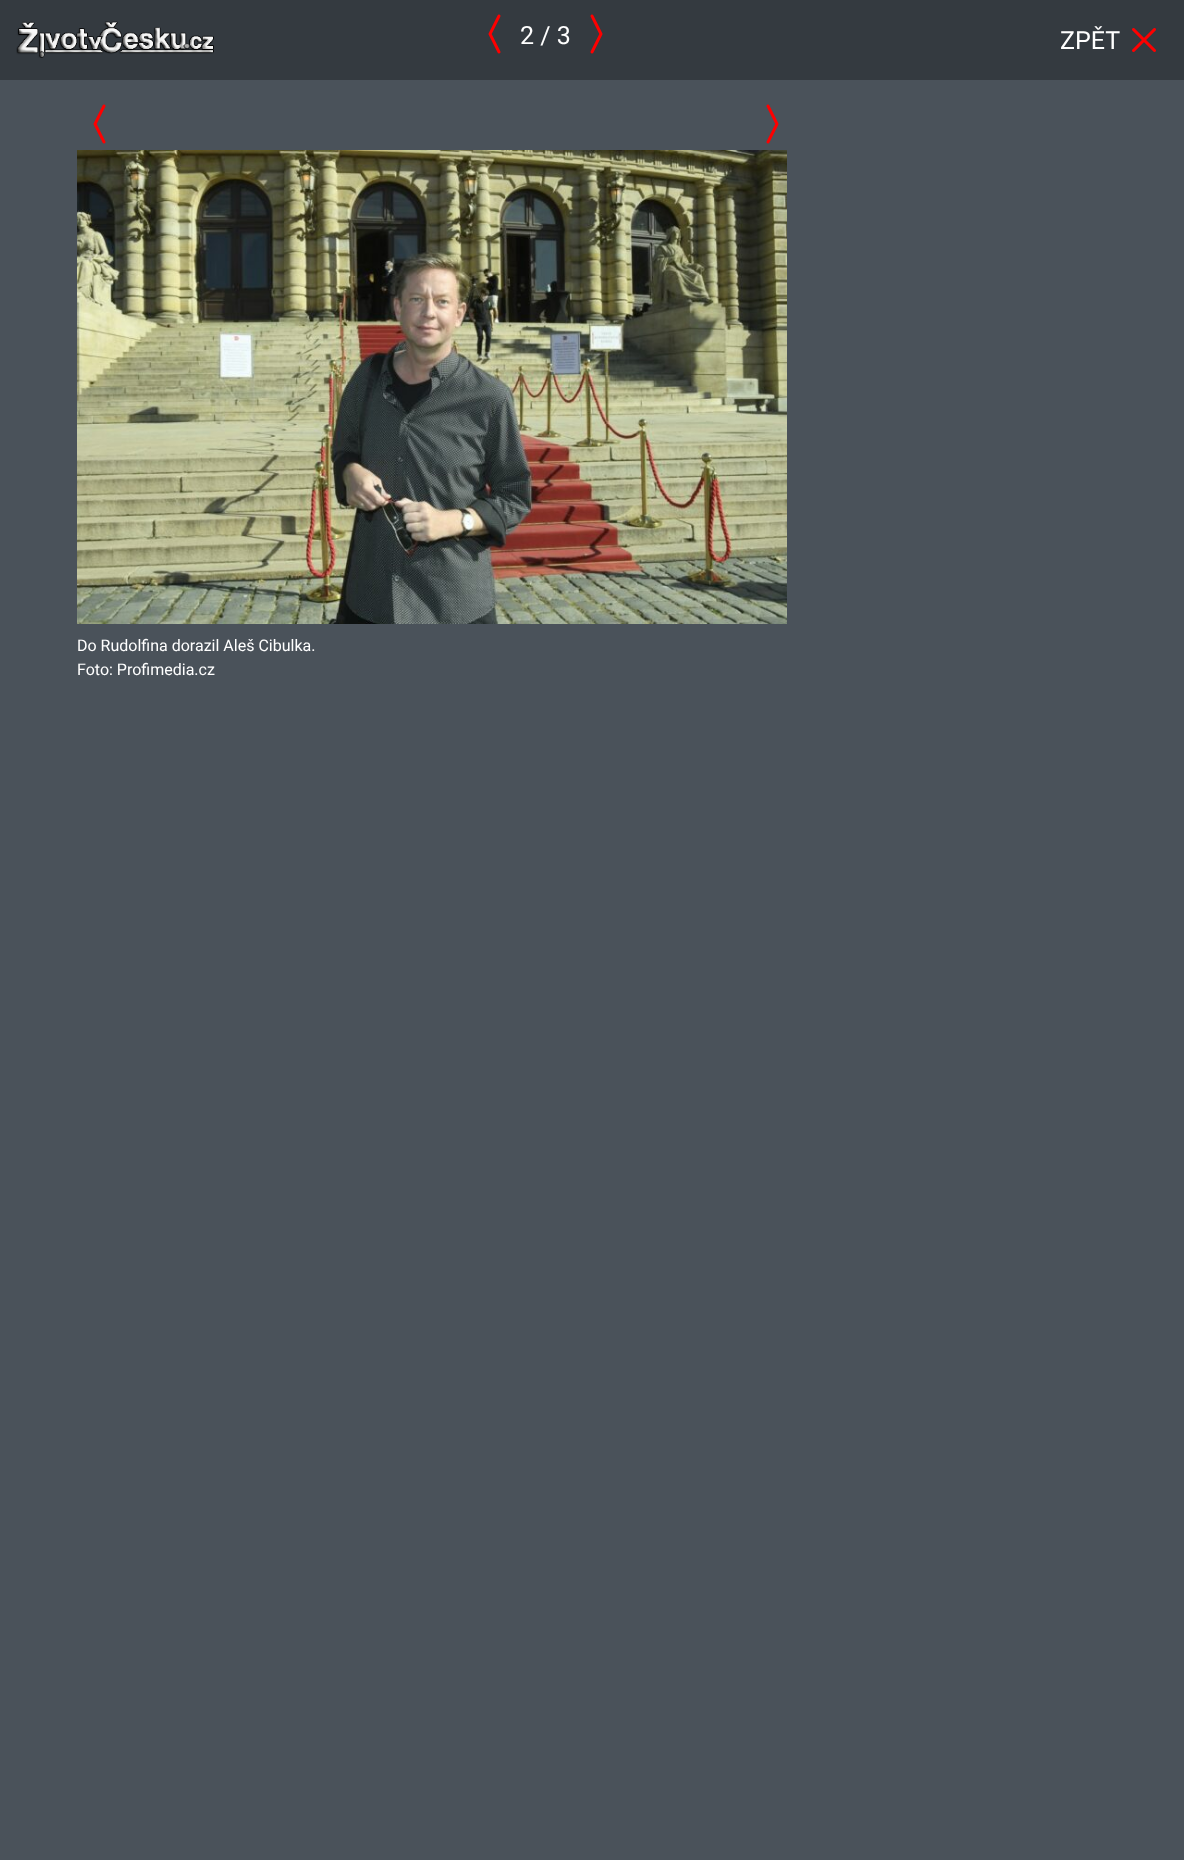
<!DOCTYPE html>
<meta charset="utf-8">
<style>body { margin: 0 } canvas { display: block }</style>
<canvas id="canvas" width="1184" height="1860"></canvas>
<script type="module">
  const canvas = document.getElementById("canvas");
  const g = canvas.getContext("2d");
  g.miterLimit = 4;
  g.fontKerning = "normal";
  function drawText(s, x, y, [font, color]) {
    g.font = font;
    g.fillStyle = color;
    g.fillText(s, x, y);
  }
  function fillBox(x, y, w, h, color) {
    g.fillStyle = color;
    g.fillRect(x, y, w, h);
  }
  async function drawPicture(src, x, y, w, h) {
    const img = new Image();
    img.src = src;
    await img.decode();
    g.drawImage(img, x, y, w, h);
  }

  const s1 = ["25px Roboto", "#FFFFFF"];
  const s2 = ["16px Roboto", "#FFFFFF"];

  fillBox(0, 0, 1184, 1860, "#4A525A");
  fillBox(0, 0, 1184, 80, "#343A40");
  await drawPicture("pic1.png", 16, 21, 198, 37);
  await drawPicture("pic2.png", 488, 14, 13, 40);
  drawText("2 / 3", 520, 44, s1);
  await drawPicture("pic3.png", 590, 14, 13, 40);
  drawText("ZPĚT", 1060, 49, s1);
  await drawPicture("pic4.png", 1132, 28, 24, 24);
  await drawPicture("pic5.png", 93, 104, 13, 40);
  await drawPicture("pic6.png", 766, 104, 13, 40);
  await drawPicture("pic7.png", 77, 150, 710, 474);
  drawText("Do Rudolfina dorazil Aleš Cibulka.", 77, 651, s2);
  drawText("Foto: Profimedia.cz", 77, 675, s2);
</script>
